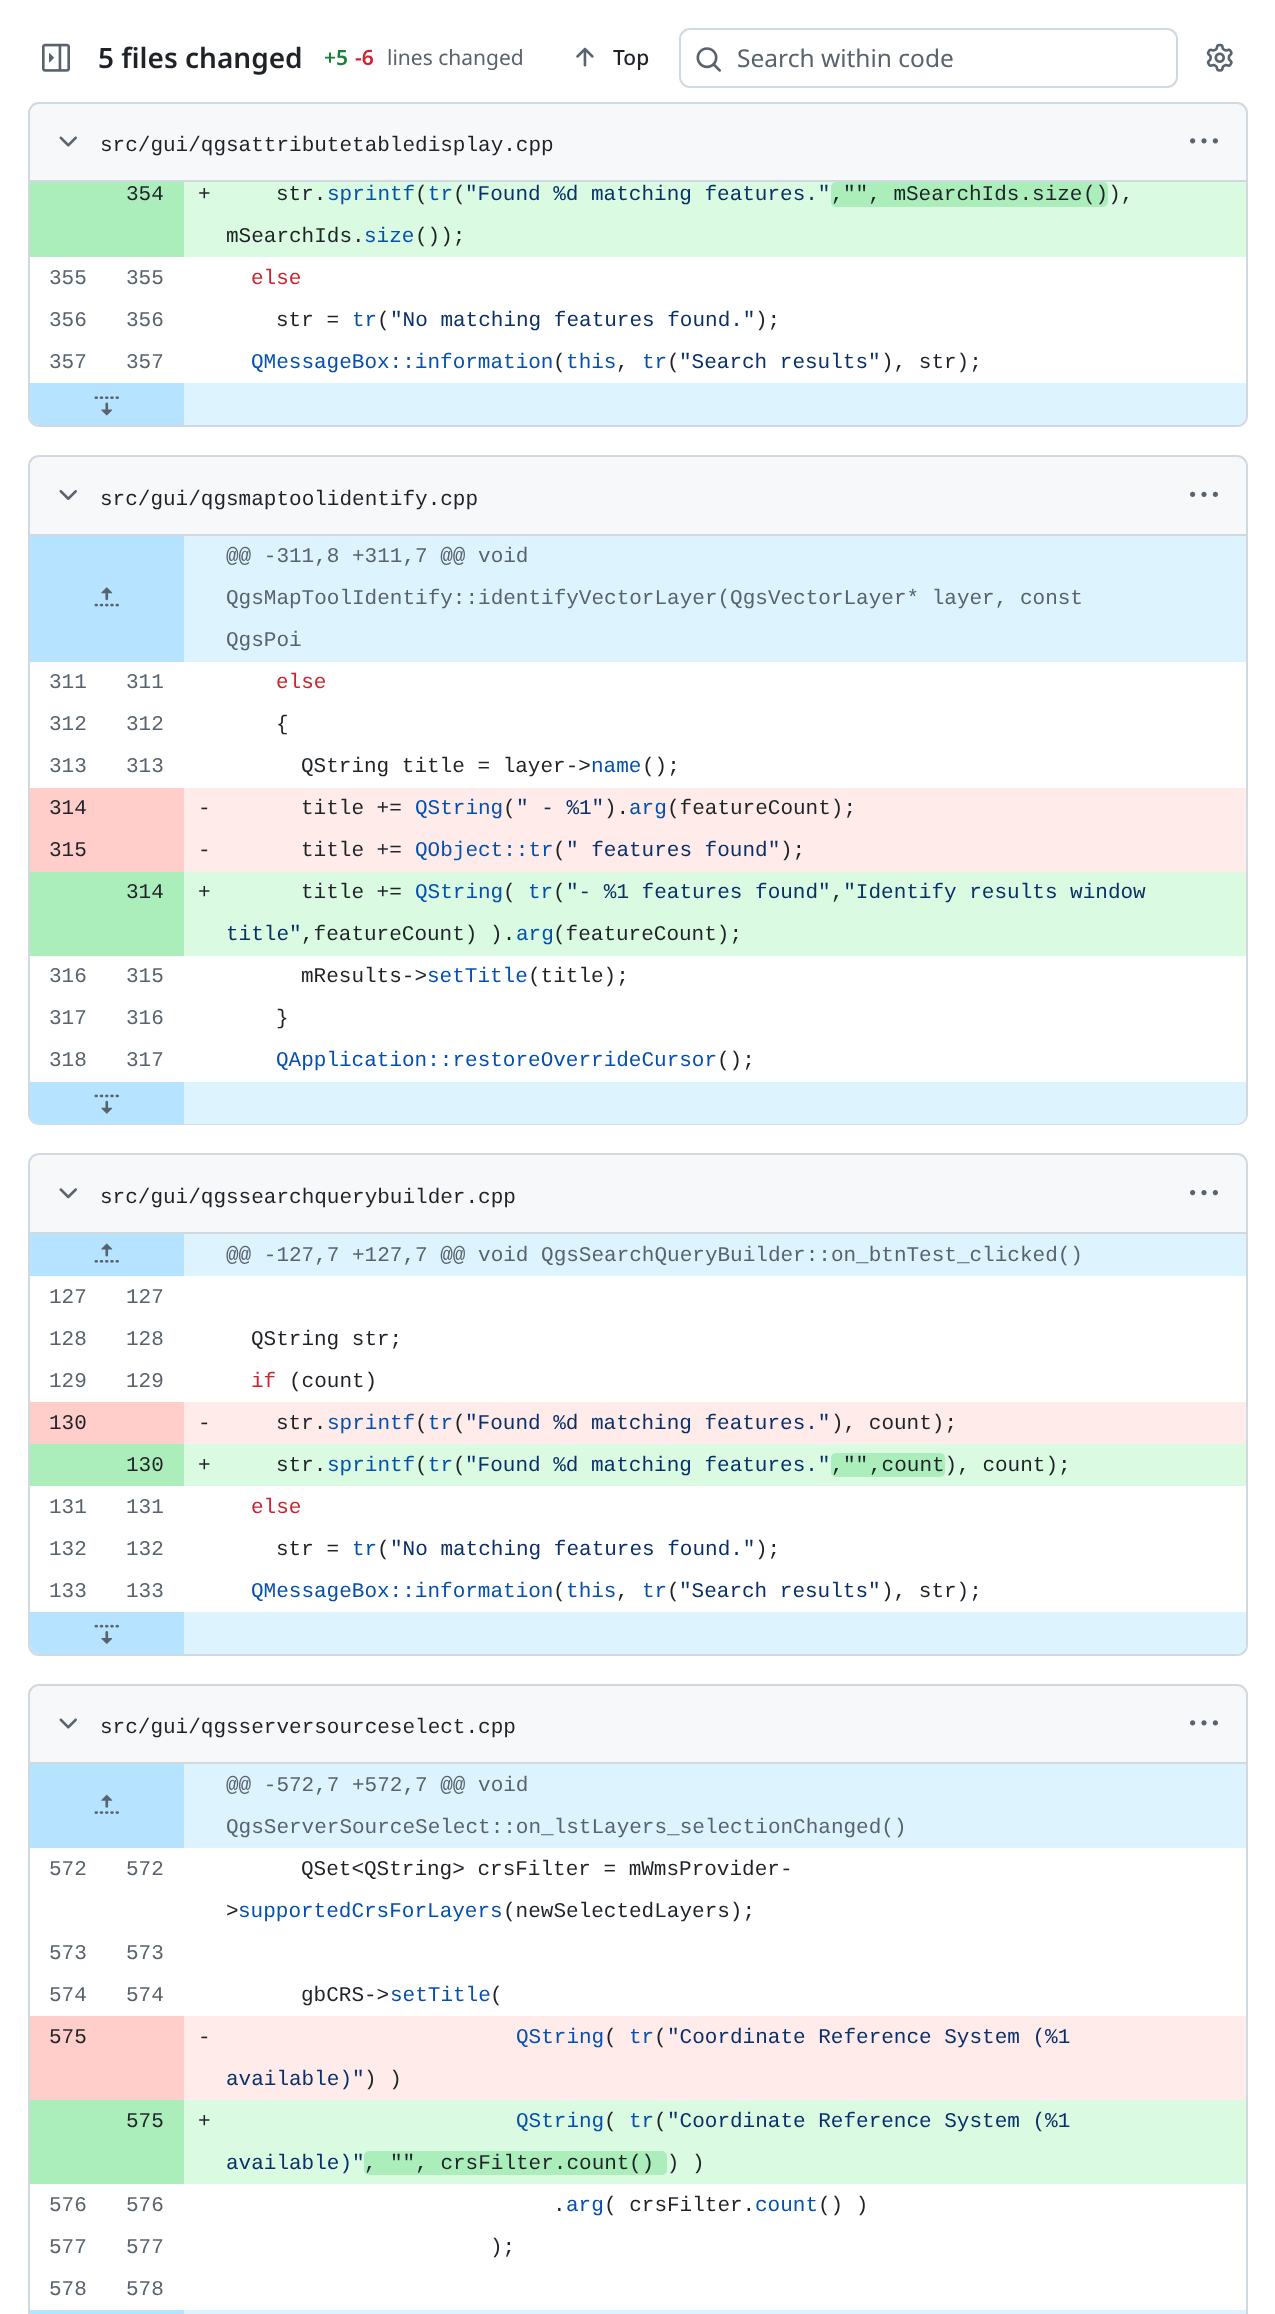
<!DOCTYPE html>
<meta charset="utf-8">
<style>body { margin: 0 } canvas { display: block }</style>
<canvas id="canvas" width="1275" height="2314"></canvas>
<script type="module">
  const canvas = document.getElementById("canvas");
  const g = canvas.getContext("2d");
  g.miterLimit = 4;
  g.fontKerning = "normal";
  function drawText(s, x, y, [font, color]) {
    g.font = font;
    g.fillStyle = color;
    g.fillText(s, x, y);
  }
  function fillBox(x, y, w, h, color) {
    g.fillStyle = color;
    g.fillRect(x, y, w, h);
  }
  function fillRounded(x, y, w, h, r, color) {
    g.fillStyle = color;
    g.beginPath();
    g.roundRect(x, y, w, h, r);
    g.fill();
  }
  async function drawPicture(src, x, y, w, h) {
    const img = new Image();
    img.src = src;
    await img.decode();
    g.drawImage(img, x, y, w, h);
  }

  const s1 = ["600 28px Noto Sans", "#1F2328"];
  const s2 = ["600 21px Noto Sans", "#1A7F37"];
  const s3 = ["600 21px Noto Sans", "#CF222E"];
  const s4 = ["21px Noto Sans", "#59636E"];
  const s5 = ["500 21px Noto Sans", "#1F2328"];
  const s6 = ["24.5px Noto Sans", "#59636E"];
  const s7 = ["21px Liberation Mono", "#1F2328"];
  const s8 = ["21px Liberation Mono", "#0550AE"];
  const s9 = ["21px Liberation Mono", "#0A3069"];
  const s10 = ["21px Liberation Mono", "#59636E"];
  const s11 = ["21px Liberation Mono", "#CF222E"];

  fillBox(0, 0, 1275, 2314, "#FFFFFF");
  g.beginPath();
  g.moveTo(29, -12);
  g.lineTo(1247, -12);
  g.lineTo(1247, 416);
  g.bezierCurveTo(1247, 421.5, 1242.5, 426, 1237, 426);
  g.lineTo(39, 426);
  g.bezierCurveTo(33.5, 426, 29, 421.5, 29, 416);
  g.closePath();
  g.strokeStyle = "#D1D9E0";
  g.lineWidth = 2;
  g.stroke();
  fillBox(28, 0, 1220, 102, "#FFFFFF");
  await drawPicture("pic1.png", 42, 43, 28, 29);
  drawText("5 files changed", 98, 68, s1);
  drawText("+5", 324, 65, s2);
  drawText("-6", 355, 65, s3);
  drawText("lines changed", 387, 65, s4);
  await drawPicture("pic2.png", 576, 47, 18, 20);
  drawText("Top", 613, 65, s5);
  g.fillStyle = "#F6F6F6";
  g.beginPath();
  g.moveTo(690, 32);
  g.lineTo(1167, 32);
  g.bezierCurveTo(1172, 32, 1176, 35, 1176, 40);
  g.bezierCurveTo(1176, 35, 1173, 30, 1167, 30);
  g.lineTo(690, 30);
  g.bezierCurveTo(684, 30, 681, 35, 681, 40);
  g.bezierCurveTo(681, 35, 685, 32, 690, 32);
  g.closePath();
  g.fill();
  g.beginPath();
  g.roundRect(680, 29, 497, 58, 10);
  g.stroke();
  fillRounded(681, 30, 495, 56, 11, "#FFFFFF");
  await drawPicture("pic3.png", 696, 47, 25, 25);
  drawText("Search within code", 737, 67, s6);
  await drawPicture("pic4.png", 1206, 43, 27, 29);
  fillBox(28, 102, 1220, 11, "#FFFFFF");
  g.fillStyle = "#F6F8FA";
  g.beginPath();
  g.roundRect(29, 103, 1218, 78, [10, 10, 0, 0]);
  g.fill();
  g.stroke();
  await drawPicture("pic5.png", 59, 136, 18, 11);
  drawText("src/gui/qgsattributetabledisplay.cpp", 100, 151, s7);
  await drawPicture("pic6.png", 1190, 138, 28, 6);
  fillBox(30, 182, 154, 75, "#ACEEBB");
  fillBox(184, 182, 1062, 75, "#DAFBE1");
  drawText("+", 198, 200, s7);
  drawText("sprintf tr", 327, 200, s8);
  drawText("str.", 276, 200, s7);
  drawText("(", 415, 200, s7);
  drawText("(", 453, 200, s7);
  drawText("\"Found %d matching features.\"", 465, 200, s9);
  g.fillStyle = "#ACEEBB";
  g.beginPath();
  g.roundRect(831, 182, 13, 25, [5, 0, 0, 5]);
  g.fill();
  drawText(",", 831, 200, s7);
  fillBox(844, 182, 239, 25, "#ACEEBB");
  drawText("\"\", mSearchIds.size", 843, 200, s7);
  g.fillStyle = "#ACEEBB";
  g.beginPath();
  g.roundRect(1083, 182, 25, 25, [0, 5, 5, 0]);
  g.fill();
  drawText("()),", 1083, 200, s7);
  drawText("mSearchIds.", 226, 242, s7);
  drawText("size", 364, 242, s8);
  drawText("());", 415, 242, s7);
  drawText("354", 126, 200, s7);
  drawText("355", 49, 284, s10);
  drawText("355", 126, 284, s10);
  drawText("else", 251, 284, s11);
  drawText("356", 49, 326, s10);
  drawText("356", 126, 326, s10);
  drawText("str =", 276, 326, s7);
  drawText("tr", 352, 326, s8);
  drawText("(", 377, 326, s7);
  drawText("\"No matching features found.\"", 390, 326, s9);
  drawText(");", 755, 326, s7);
  drawText("357", 49, 368, s10);
  drawText("357", 126, 368, s10);
  drawText("QMessageBox::information this", 251, 368, s8);
  drawText("(", 553, 368, s7);
  drawText(",", 616, 368, s7);
  drawText("tr", 642, 368, s8);
  drawText("(", 667, 368, s7);
  drawText("\"Search results\"", 679, 368, s9);
  drawText("), str);", 881, 368, s7);
  g.fillStyle = "#DDF4FF";
  g.beginPath();
  g.roundRect(30, 383, 1216, 42, [0, 0, 9, 9]);
  g.fill();
  g.fillStyle = "#B6E3FF";
  g.beginPath();
  g.roundRect(30, 383, 154, 42, [0, 0, 0, 9]);
  g.fill();
  await drawPicture("pic7.png", 94, 396, 25, 20);
  g.beginPath();
  g.roundRect(29, 535, 1218, 589, [0, 0, 10, 10]);
  g.stroke();
  g.fillStyle = "#F6F8FA";
  g.beginPath();
  g.roundRect(29, 456, 1218, 79, [10, 10, 0, 0]);
  g.fill();
  g.stroke();
  await drawPicture("pic8.png", 59, 490, 18, 10);
  drawText("src/gui/qgsmaptoolidentify.cpp", 100, 505, s7);
  await drawPicture("pic9.png", 1190, 491, 28, 6);
  fillBox(184, 536, 1062, 126, "#DDF4FF");
  fillBox(30, 536, 154, 126, "#B6E3FF");
  await drawPicture("pic10.png", 94, 587, 25, 20);
  drawText("@@ -311,8 +311,7 @@ void", 226, 562, s10);
  drawText("QgsMapToolIdentify::identifyVectorLayer(QgsVectorLayer* layer, const", 226, 604, s10);
  drawText("QgsPoi", 226, 646, s10);
  drawText("311", 49, 688, s10);
  drawText("311", 126, 688, s10);
  drawText("else", 276, 688, s11);
  drawText("312", 49, 730, s10);
  drawText("312", 126, 730, s10);
  drawText("{", 276, 730, s7);
  drawText("313", 49, 772, s10);
  drawText("313", 126, 772, s10);
  drawText("QString title = layer->", 301, 772, s7);
  drawText("name", 591, 772, s8);
  drawText("();", 642, 772, s7);
  fillBox(30, 788, 154, 42, "#FFCECB");
  drawText("314", 49, 814, s7);
  fillBox(184, 788, 1062, 84, "#FFEBE9");
  drawText("-", 198, 814, s7);
  drawText("title +=", 301, 814, s7);
  drawText("QString", 415, 814, s8);
  drawText("(", 503, 814, s7);
  drawText("\" - %1\"", 516, 814, s9);
  drawText(").", 604, 814, s7);
  drawText("arg", 629, 814, s8);
  drawText("(featureCount);", 667, 814, s7);
  fillBox(30, 830, 154, 42, "#FFCECB");
  drawText("315", 49, 856, s7);
  drawText("-", 198, 856, s7);
  drawText("title +=", 301, 856, s7);
  drawText("QObject::tr", 415, 856, s8);
  drawText("(", 553, 856, s7);
  drawText("\" features found\"", 566, 856, s9);
  drawText(");", 780, 856, s7);
  fillBox(30, 872, 154, 84, "#ACEEBB");
  fillBox(184, 872, 1062, 84, "#DAFBE1");
  drawText("+", 198, 898, s7);
  drawText("title +=", 301, 898, s7);
  drawText("QString", 415, 898, s8);
  drawText("(", 503, 898, s7);
  drawText("tr", 528, 898, s8);
  drawText("(", 553, 898, s7);
  drawText("\"- %1 features found\" \"Identify results window", 566, 898, s9);
  drawText(",", 831, 898, s7);
  drawText("title\"", 226, 940, s9);
  drawText(",featureCount) ).", 301, 940, s7);
  drawText("arg", 516, 940, s8);
  drawText("(featureCount);", 553, 940, s7);
  drawText("314", 126, 898, s7);
  drawText("316", 49, 982, s10);
  drawText("315", 126, 982, s10);
  drawText("mResults->", 301, 982, s7);
  drawText("setTitle", 427, 982, s8);
  drawText("(title);", 528, 982, s7);
  drawText("317", 49, 1024, s10);
  drawText("316", 126, 1024, s10);
  drawText("}", 276, 1024, s7);
  drawText("318", 49, 1066, s10);
  drawText("317", 126, 1066, s10);
  drawText("QApplication::restoreOverrideCursor", 276, 1066, s8);
  drawText("();", 717, 1066, s7);
  g.fillStyle = "#DDF4FF";
  g.beginPath();
  g.roundRect(30, 1082, 1216, 42, [0, 0, 9, 9]);
  g.fill();
  g.fillStyle = "#B6E3FF";
  g.beginPath();
  g.roundRect(30, 1082, 154, 42, [0, 0, 0, 9]);
  g.fill();
  await drawPicture("pic11.png", 94, 1094, 25, 20);
  g.beginPath();
  g.roundRect(29, 1233, 1218, 422, [0, 0, 10, 10]);
  g.stroke();
  g.fillStyle = "#F6F8FA";
  g.beginPath();
  g.roundRect(29, 1154, 1218, 79, [10, 10, 0, 0]);
  g.fill();
  g.stroke();
  await drawPicture("pic12.png", 59, 1188, 18, 11);
  drawText("src/gui/qgssearchquerybuilder.cpp", 100, 1203, s7);
  await drawPicture("pic13.png", 1190, 1190, 28, 6);
  fillBox(184, 1234, 1062, 42, "#DDF4FF");
  fillBox(30, 1234, 154, 42, "#B6E3FF");
  await drawPicture("pic14.png", 94, 1243, 25, 20);
  drawText("@@ -127,7 +127,7 @@ void QgsSearchQueryBuilder::on_btnTest_clicked()", 226, 1261, s10);
  drawText("127", 49, 1303, s10);
  drawText("127", 126, 1303, s10);
  drawText("128", 49, 1345, s10);
  drawText("128", 126, 1345, s10);
  drawText("QString str;", 251, 1345, s7);
  drawText("129", 49, 1387, s10);
  drawText("129", 126, 1387, s10);
  drawText("if", 251, 1387, s11);
  drawText("(count)", 289, 1387, s7);
  fillBox(30, 1402, 154, 42, "#FFCECB");
  drawText("130", 49, 1429, s7);
  fillBox(184, 1402, 1062, 42, "#FFEBE9");
  drawText("-", 198, 1429, s7);
  drawText("sprintf tr", 327, 1429, s8);
  drawText("str.", 276, 1429, s7);
  drawText("(", 415, 1429, s7);
  drawText("(", 453, 1429, s7);
  drawText("\"Found %d matching features.\"", 465, 1429, s9);
  drawText("), count);", 831, 1429, s7);
  fillBox(30, 1444, 154, 42, "#ACEEBB");
  fillBox(184, 1444, 1062, 42, "#DAFBE1");
  drawText("+", 198, 1471, s7);
  drawText("sprintf tr", 327, 1471, s8);
  drawText("str.", 276, 1471, s7);
  drawText("(", 415, 1471, s7);
  drawText("(", 453, 1471, s7);
  drawText("\"Found %d matching features.\"", 465, 1471, s9);
  g.fillStyle = "#ACEEBB";
  g.beginPath();
  g.roundRect(831, 1453, 13, 24, [5, 0, 0, 5]);
  g.fill();
  drawText(",", 831, 1471, s7);
  fillBox(844, 1453, 24, 24, "#ACEEBB");
  drawText("\"\"", 843, 1471, s7);
  g.fillStyle = "#ACEEBB";
  g.beginPath();
  g.roundRect(868, 1453, 77, 24, [0, 5, 5, 0]);
  g.fill();
  drawText(",count), count);", 869, 1471, s7);
  drawText("130", 126, 1471, s7);
  drawText("131", 49, 1513, s10);
  drawText("131", 126, 1513, s10);
  drawText("else", 251, 1513, s11);
  drawText("132", 49, 1555, s10);
  drawText("132", 126, 1555, s10);
  drawText("str =", 276, 1555, s7);
  drawText("tr", 352, 1555, s8);
  drawText("(", 377, 1555, s7);
  drawText("\"No matching features found.\"", 390, 1555, s9);
  drawText(");", 755, 1555, s7);
  drawText("133", 49, 1597, s10);
  drawText("133", 126, 1597, s10);
  drawText("QMessageBox::information this", 251, 1597, s8);
  drawText("(", 553, 1597, s7);
  drawText(",", 616, 1597, s7);
  drawText("tr", 642, 1597, s8);
  drawText("(", 667, 1597, s7);
  drawText("\"Search results\"", 679, 1597, s9);
  drawText("), str);", 881, 1597, s7);
  g.fillStyle = "#DDF4FF";
  g.beginPath();
  g.roundRect(30, 1612, 1216, 42, [0, 0, 9, 9]);
  g.fill();
  g.fillStyle = "#B6E3FF";
  g.beginPath();
  g.roundRect(30, 1612, 154, 42, [0, 0, 0, 9]);
  g.fill();
  await drawPicture("pic15.png", 94, 1624, 25, 20);
  g.strokeRect(29, 1763, 1218, 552);
  g.fillStyle = "#F6F8FA";
  g.beginPath();
  g.roundRect(29, 1685, 1218, 78, [10, 10, 0, 0]);
  g.fill();
  g.stroke();
  await drawPicture("pic5.png", 59, 1718, 18, 11);
  drawText("src/gui/qgsserversourceselect.cpp", 100, 1733, s7);
  await drawPicture("pic6.png", 1190, 1720, 28, 6);
  fillBox(184, 1764, 1062, 84, "#DDF4FF");
  fillBox(30, 1764, 154, 84, "#B6E3FF");
  await drawPicture("pic16.png", 94, 1794, 25, 20);
  drawText("@@ -572,7 +572,7 @@ void", 226, 1791, s10);
  drawText("QgsServerSourceSelect::on_lstLayers_selectionChanged()", 226, 1833, s10);
  drawText("572", 49, 1875, s10);
  drawText("572", 126, 1875, s10);
  drawText("QSet<QString> crsFilter = mWmsProvider-", 301, 1875, s7);
  drawText(">", 226, 1917, s7);
  drawText("supportedCrsForLayers", 238, 1917, s8);
  drawText("(newSelectedLayers);", 503, 1917, s7);
  drawText("573", 49, 1959, s10);
  drawText("573", 126, 1959, s10);
  drawText("574", 49, 2001, s10);
  drawText("574", 126, 2001, s10);
  drawText("gbCRS->", 301, 2001, s7);
  drawText("setTitle", 390, 2001, s8);
  drawText("(", 490, 2001, s7);
  fillBox(30, 2016, 154, 84, "#FFCECB");
  drawText("575", 49, 2043, s7);
  fillBox(184, 2016, 1062, 84, "#FFEBE9");
  drawText("-", 198, 2043, s7);
  drawText("QString", 516, 2043, s8);
  drawText("(", 604, 2043, s7);
  drawText("tr", 629, 2043, s8);
  drawText("(", 654, 2043, s7);
  drawText("\"Coordinate Reference System (%1", 667, 2043, s9);
  drawText("available)\"", 226, 2085, s9);
  drawText(") )", 364, 2085, s7);
  fillBox(30, 2100, 154, 84, "#ACEEBB");
  fillBox(184, 2100, 1062, 84, "#DAFBE1");
  drawText("+", 198, 2127, s7);
  drawText("QString", 516, 2127, s8);
  drawText("(", 604, 2127, s7);
  drawText("tr", 629, 2127, s8);
  drawText("(", 654, 2127, s7);
  drawText("\"Coordinate Reference System (%1", 667, 2127, s9);
  drawText("available)\"", 226, 2169, s9);
  g.fillStyle = "#ACEEBB";
  g.beginPath();
  g.roundRect(364, 2151, 26, 24, [5, 0, 0, 5]);
  g.fill();
  drawText(",", 364, 2169, s7);
  fillBox(390, 2151, 238, 24, "#ACEEBB");
  drawText("\"\", crsFilter.count", 390, 2169, s7);
  g.fillStyle = "#ACEEBB";
  g.beginPath();
  g.roundRect(628, 2151, 39, 24, [0, 5, 5, 0]);
  g.fill();
  drawText("() ) )", 629, 2169, s7);
  drawText("575", 126, 2127, s7);
  drawText("576", 49, 2211, s10);
  drawText("576", 126, 2211, s10);
  drawText(".", 553, 2211, s7);
  drawText("arg", 566, 2211, s8);
  drawText("( crsFilter.", 604, 2211, s7);
  drawText("count", 755, 2211, s8);
  drawText("() )", 818, 2211, s7);
  drawText("577", 49, 2253, s10);
  drawText("577", 126, 2253, s10);
  drawText(");", 490, 2253, s7);
  drawText("578", 49, 2295, s10);
  drawText("578", 126, 2295, s10);
  fillBox(184, 2310, 1062, 4, "#DDF4FF");
  fillBox(30, 2310, 154, 4, "#B6E3FF");
</script>
